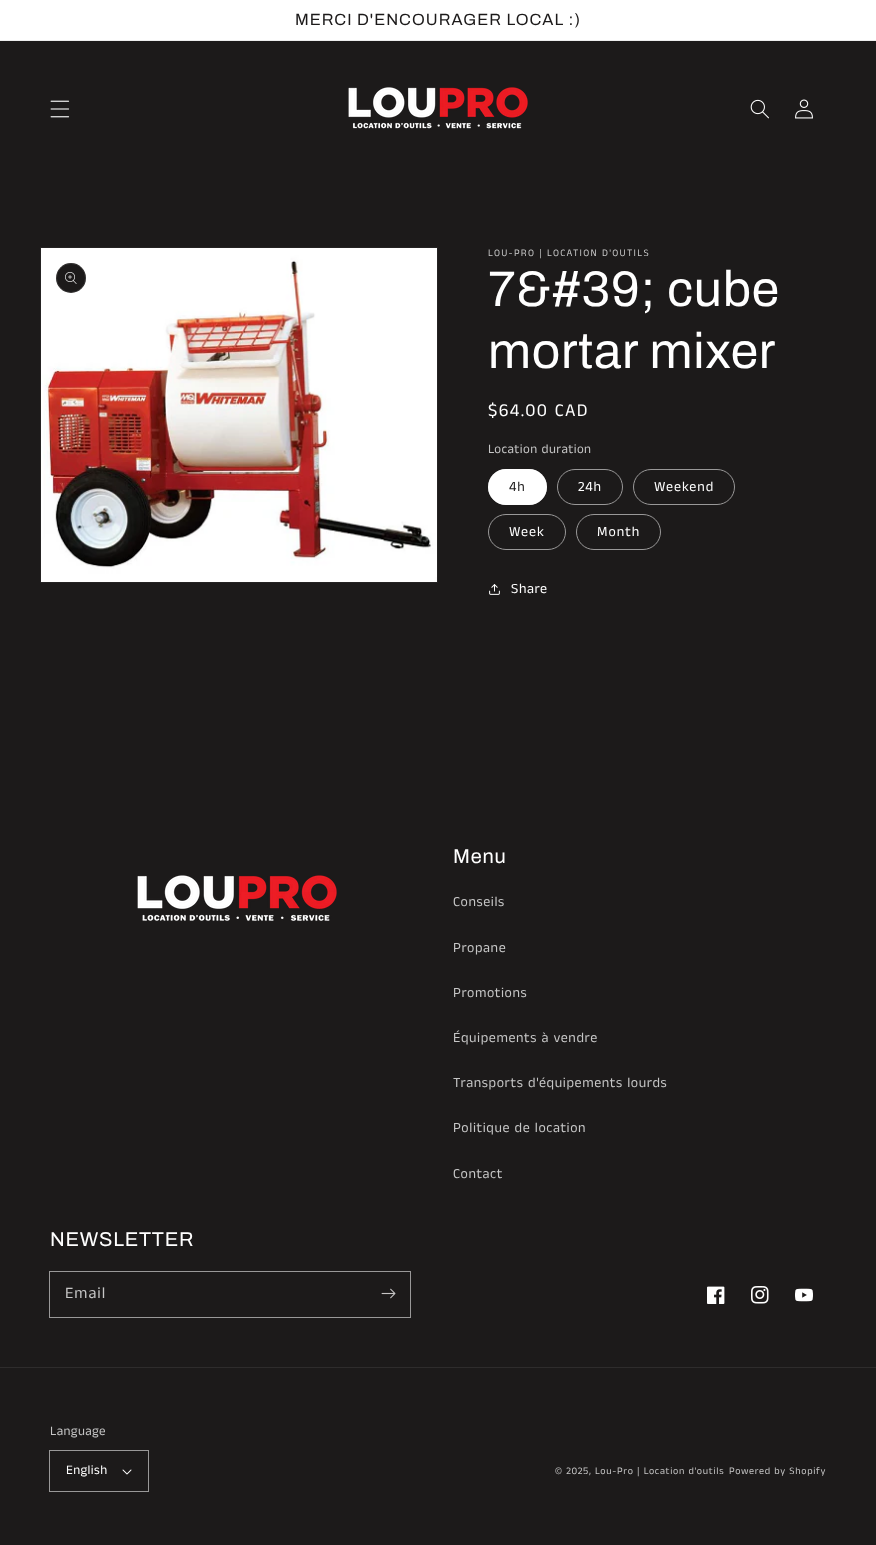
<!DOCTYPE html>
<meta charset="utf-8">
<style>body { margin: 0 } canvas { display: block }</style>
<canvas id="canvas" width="876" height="1545"></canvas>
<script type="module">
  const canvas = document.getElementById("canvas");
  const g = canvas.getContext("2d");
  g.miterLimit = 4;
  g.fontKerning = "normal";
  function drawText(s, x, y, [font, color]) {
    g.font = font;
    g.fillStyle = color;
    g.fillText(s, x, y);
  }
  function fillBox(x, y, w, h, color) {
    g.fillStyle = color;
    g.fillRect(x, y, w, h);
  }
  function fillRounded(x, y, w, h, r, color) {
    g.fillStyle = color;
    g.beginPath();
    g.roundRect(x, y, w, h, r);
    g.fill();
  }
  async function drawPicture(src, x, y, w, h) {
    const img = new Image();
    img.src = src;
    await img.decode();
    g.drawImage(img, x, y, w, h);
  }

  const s1 = ["16.25px Archivo", "#1C1A1A"];
  const s2 = ["10px Anek Tamil", "#C6C6C6"];
  const s3 = ["50px Archivo", "#FFFFFF"];
  const s4 = ["18px Anek Tamil", "#FFFFFF"];
  const s5 = ["13px Anek Tamil", "#C6C6C6"];
  const s6 = ["14px Anek Tamil", "#1C1A1A"];
  const s7 = ["14px Anek Tamil", "#FFFFFF"];
  const s8 = ["20px Archivo", "#FFFFFF"];
  const s9 = ["14px Anek Tamil", "#C6C6C6"];
  const s10 = ["16px Anek Tamil", "#C6C6C6"];
  const s11 = ["13px Anek Tamil", "#FFFFFF"];

  fillBox(0, 0, 876, 1545, "#1C1A1A");
  fillBox(0, 0, 876, 40, "#FFFFFF");
  fillBox(0, 40, 876, 1, "#EDEDED");
  g.letterSpacing = "1px";
  drawText("MERCI D'ENCOURAGER LOCAL :)", 295, 25, s1);
  await drawPicture("pic1.png", 50, 100, 20, 18);
  await drawPicture("pic2.png", 348, 87, 180, 42);
  await drawPicture("pic3.png", 750, 99, 19, 20);
  await drawPicture("pic4.png", 795, 99, 18, 20);
  g.strokeStyle = "#252323";
  g.strokeRect(40.5, 247.5, 397, 335);
  await drawPicture("pic5.png", 41, 248, 396, 334);
  g.beginPath();
  g.arc(71, 278, 15, 0, Math.PI * 2);
  g.fill();
  g.beginPath();
  g.arc(71, 278, 14.5, 0, Math.PI * 2);
  g.strokeStyle = "rgba(255, 255, 255, 0.1)";
  g.stroke();
  await drawPicture("pic6.png", 65, 272, 12, 12);
  g.letterSpacing = "1.3px";
  drawText("LOU-PRO | LOCATION D'OUTILS", 488, 256, s2);
  g.letterSpacing = "0.75px";
  drawText("7&#39; cube", 488, 306, s3);
  drawText("mortar mixer", 488, 368, s3);
  g.letterSpacing = "1.3px";
  drawText("$64.00 CAD", 488, 416, s4);
  g.letterSpacing = "0.4px";
  drawText("Location duration", 488, 453, s5);
  fillRounded(488, 469, 59, 36, 18, "#FFFFFF");
  g.beginPath();
  g.roundRect(488.5, 469.5, 58, 35, 17.5);
  g.strokeStyle = "rgba(255, 255, 255, 0.55)";
  g.stroke();
  g.letterSpacing = "1px";
  drawText("4h", 509, 491, s6);
  g.beginPath();
  g.roundRect(557.5, 469.5, 65, 35, 17.5);
  g.strokeStyle = "#999898";
  g.stroke();
  drawText("24h", 578, 491, s7);
  g.beginPath();
  g.roundRect(633.5, 469.5, 101, 35, 17.5);
  g.stroke();
  drawText("Weekend", 654, 491, s7);
  g.beginPath();
  g.roundRect(488.5, 514.5, 77, 35, 17.5);
  g.stroke();
  drawText("Week", 509, 536, s7);
  g.beginPath();
  g.roundRect(576.5, 514.5, 84, 35, 17.5);
  g.stroke();
  drawText("Month", 597, 536, s7);
  await drawPicture("pic7.png", 489, 584, 11, 11);
  g.letterSpacing = "0.6px";
  drawText("Share", 511, 593, s7);
  await drawPicture("pic8.png", 137, 875, 200, 47);
  g.letterSpacing = "0.75px";
  drawText("Menu", 453, 863, s8);
  g.letterSpacing = "0.6px";
  drawText("Conseils", 453, 906, s9);
  drawText("Propane", 453, 952, s9);
  drawText("Promotions", 453, 997, s9);
  drawText("Équipements à vendre", 453, 1042, s9);
  drawText("Transports d'équipements lourds", 453, 1087, s9);
  drawText("Politique de location", 453, 1132, s9);
  drawText("Contact", 453, 1178, s9);
  g.letterSpacing = "0.75px";
  drawText("NEWSLETTER", 50, 1246, s8);
  g.strokeRect(49.5, 1271.5, 361, 46);
  g.letterSpacing = "1px";
  drawText("Email", 65, 1298, s10);
  await drawPicture("pic9.png", 381, 1288, 15, 11);
  await drawPicture("pic10.png", 707, 1286, 18, 18);
  await drawPicture("pic11.png", 751, 1286, 18, 18);
  await drawPicture("pic12.png", 795, 1288, 18, 14);
  fillBox(0, 1367, 876, 1, "#2E2C2C");
  g.letterSpacing = "0.4px";
  drawText("Language", 50, 1435, s5);
  g.strokeRect(49.5, 1450.5, 99, 41);
  drawText("English", 66, 1474, s11);
  await drawPicture("pic13.png", 122, 1469, 10, 6);
  g.letterSpacing = "0.7px";
  drawText("© 2025, Lou-Pro | Location d'outils", 555, 1474, s2);
  drawText("Powered by Shopify", 729, 1474, s2);
</script>
